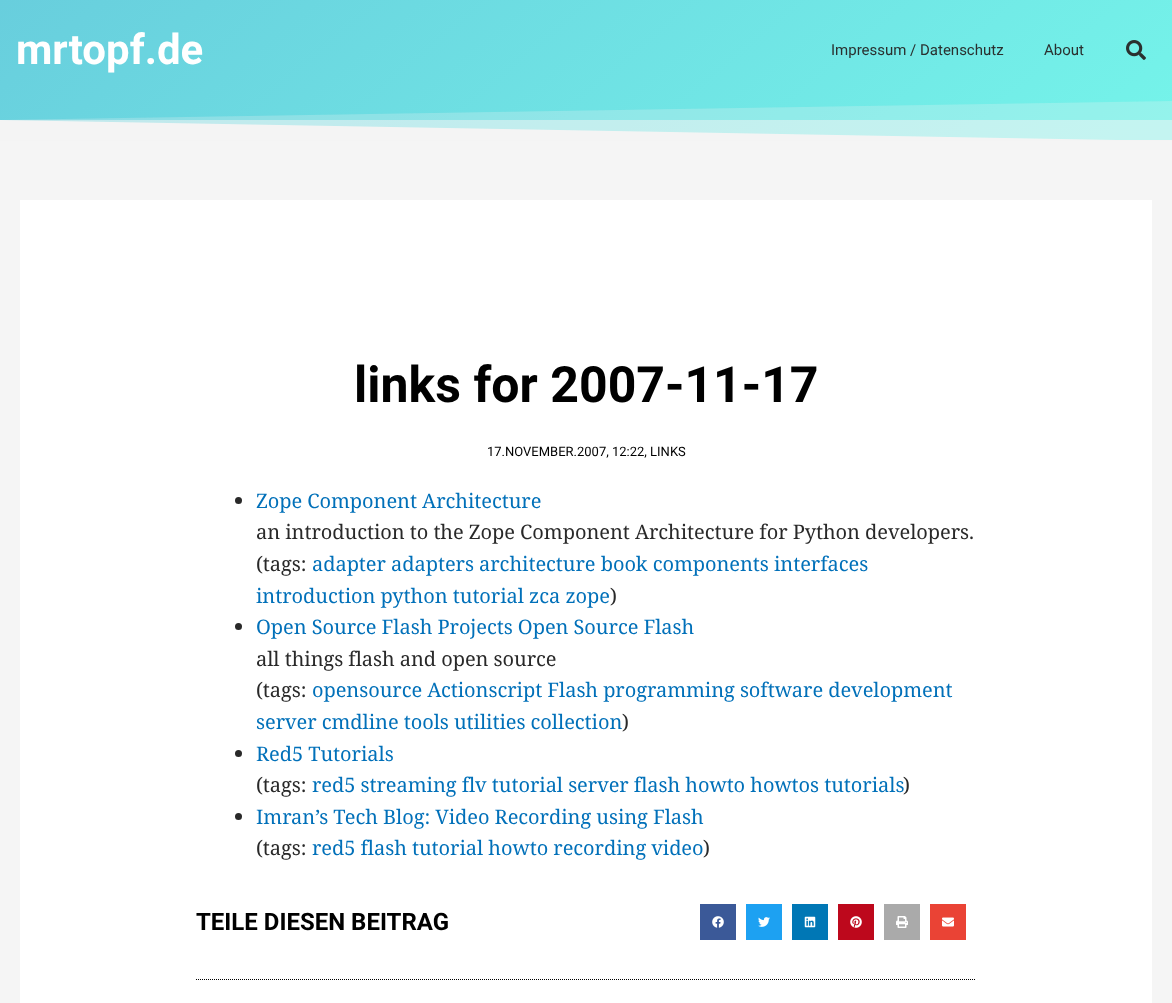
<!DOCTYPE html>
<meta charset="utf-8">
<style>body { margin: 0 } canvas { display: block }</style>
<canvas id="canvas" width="1172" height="1003"></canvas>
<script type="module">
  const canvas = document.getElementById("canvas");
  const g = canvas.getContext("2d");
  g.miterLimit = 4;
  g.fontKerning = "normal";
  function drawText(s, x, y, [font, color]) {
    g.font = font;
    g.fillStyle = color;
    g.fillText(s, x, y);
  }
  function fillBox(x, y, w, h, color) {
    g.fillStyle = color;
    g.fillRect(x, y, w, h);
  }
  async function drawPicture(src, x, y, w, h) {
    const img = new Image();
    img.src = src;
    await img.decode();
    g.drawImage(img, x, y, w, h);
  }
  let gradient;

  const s1 = ["bold 42px Roboto", "#FFFFFF"];
  const s2 = ["15px Roboto", "#2A302F"];
  const s3 = ["bold 50px Roboto", "#000000"];
  const s4 = ["13px Roboto", "#000000"];
  const s5 = ["20px Noto Serif", "#0170B9"];
  const s6 = ["20px Noto Serif", "#292929"];
  const s7 = ["bold 24px Roboto", "#000000"];

  fillBox(0, 0, 1172, 1003, "#F5F5F5");
  gradient = g.createLinearGradient(863, 400, 309, -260);
  gradient.addColorStop(0, "#75F4EA");
  gradient.addColorStop(1, "#68CEDD");
  g.fillStyle = gradient;
  g.fillRect(0, 0, 1172, 120);
  gradient = g.createLinearGradient(863, 400, 309, -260);
  gradient.addColorStop(0, "#B5F5F0");
  gradient.addColorStop(1, "#AFE2E9");
  g.fillStyle = gradient;
  g.fillRect(2, 120, 1170, 20);
  drawText("mrtopf.de", 16, 64, s1);
  drawText("Impressum / Datenschutz", 831, 55, s2);
  drawText("About", 1044, 55, s2);
  await drawPicture("pic1.png", 1126, 40, 20, 20);
  g.fillStyle = "#F5F5F5";
  g.beginPath();
  g.moveTo(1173, 141);
  g.lineTo(-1, 141);
  g.lineTo(-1, 120);
  g.closePath();
  g.fill();
  g.fillStyle = "rgba(245, 245, 245, 0.25)";
  g.beginPath();
  g.moveTo(-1, 141);
  g.lineTo(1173, 141);
  g.lineTo(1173, 101);
  g.lineTo(-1, 120);
  g.closePath();
  g.fill();
  fillBox(20, 200, 1132, 803, "#FFFFFF");
  drawText("links for 2007-11-17", 354, 402, s3);
  drawText("17.NOVEMBER.2007, 12:22, LINKS", 487, 456, s4);
  g.fillStyle = "#292929";
  g.beginPath();
  g.arc(238.5, 500.5, 3.5, 0, Math.PI * 2);
  g.fill();
  g.letterSpacing = "-0.05px";
  drawText("Zope Component Architecture", 256, 508, s5);
  drawText("an introduction to the Zope Component Architecture for Python developers.", 256, 539, s6);
  drawText("(tags:", 256, 571, s6);
  drawText("adapter adapters architecture book components interfaces", 312, 571, s5);
  drawText("introduction python tutorial zca zope", 256, 603, s5);
  drawText(")", 610, 603, s6);
  g.beginPath();
  g.arc(238.5, 626.5, 3.5, 0, Math.PI * 2);
  g.fill();
  drawText("Open Source Flash Projects Open Source Flash", 256, 634, s5);
  drawText("all things flash and open source", 256, 666, s6);
  drawText("(tags:", 256, 697, s6);
  drawText("opensource Actionscript Flash programming software development", 312, 697, s5);
  drawText("server cmdline tools utilities collection", 256, 729, s5);
  drawText(")", 622, 729, s6);
  g.beginPath();
  g.arc(238.5, 753.5, 3.5, 0, Math.PI * 2);
  g.fill();
  drawText("Red5 Tutorials", 256, 761, s5);
  drawText("(tags:", 256, 792, s6);
  drawText("red5 streaming flv tutorial server flash howto howtos tutorials", 312, 792, s5);
  drawText(")", 903, 792, s6);
  g.beginPath();
  g.arc(238.5, 816.5, 3.5, 0, Math.PI * 2);
  g.fill();
  drawText("Imran’s Tech Blog: Video Recording using Flash", 256, 824, s5);
  drawText("(tags:", 256, 855, s6);
  drawText("red5 flash tutorial howto recording video", 312, 855, s5);
  drawText(")", 703, 855, s6);
  g.letterSpacing = "0px";
  drawText("TEILE DIESEN BEITRAG", 196, 930, s7);
  fillBox(700, 904, 36, 36, "#3B5998");
  await drawPicture("pic2.png", 712, 916, 12, 12);
  fillBox(746, 904, 36, 36, "#1DA1F2");
  await drawPicture("pic3.png", 758, 917, 12, 10);
  fillBox(792, 904, 36, 36, "#0077B5");
  await drawPicture("pic4.png", 804, 916, 12, 12);
  fillBox(838, 904, 36, 36, "#BD081C");
  await drawPicture("pic5.png", 850, 916, 12, 12);
  fillBox(884, 904, 36, 36, "#AAAAAA");
  await drawPicture("pic6.png", 896, 916, 12, 12);
  fillBox(930, 904, 36, 36, "#EA4335");
  await drawPicture("pic7.png", 942, 917, 12, 10);
  g.beginPath();
  g.moveTo(196, 979.5);
  g.lineTo(976, 979.5);
  g.strokeStyle = "#000000";
  g.setLineDash([1, 1]);
  g.stroke();
</script>
